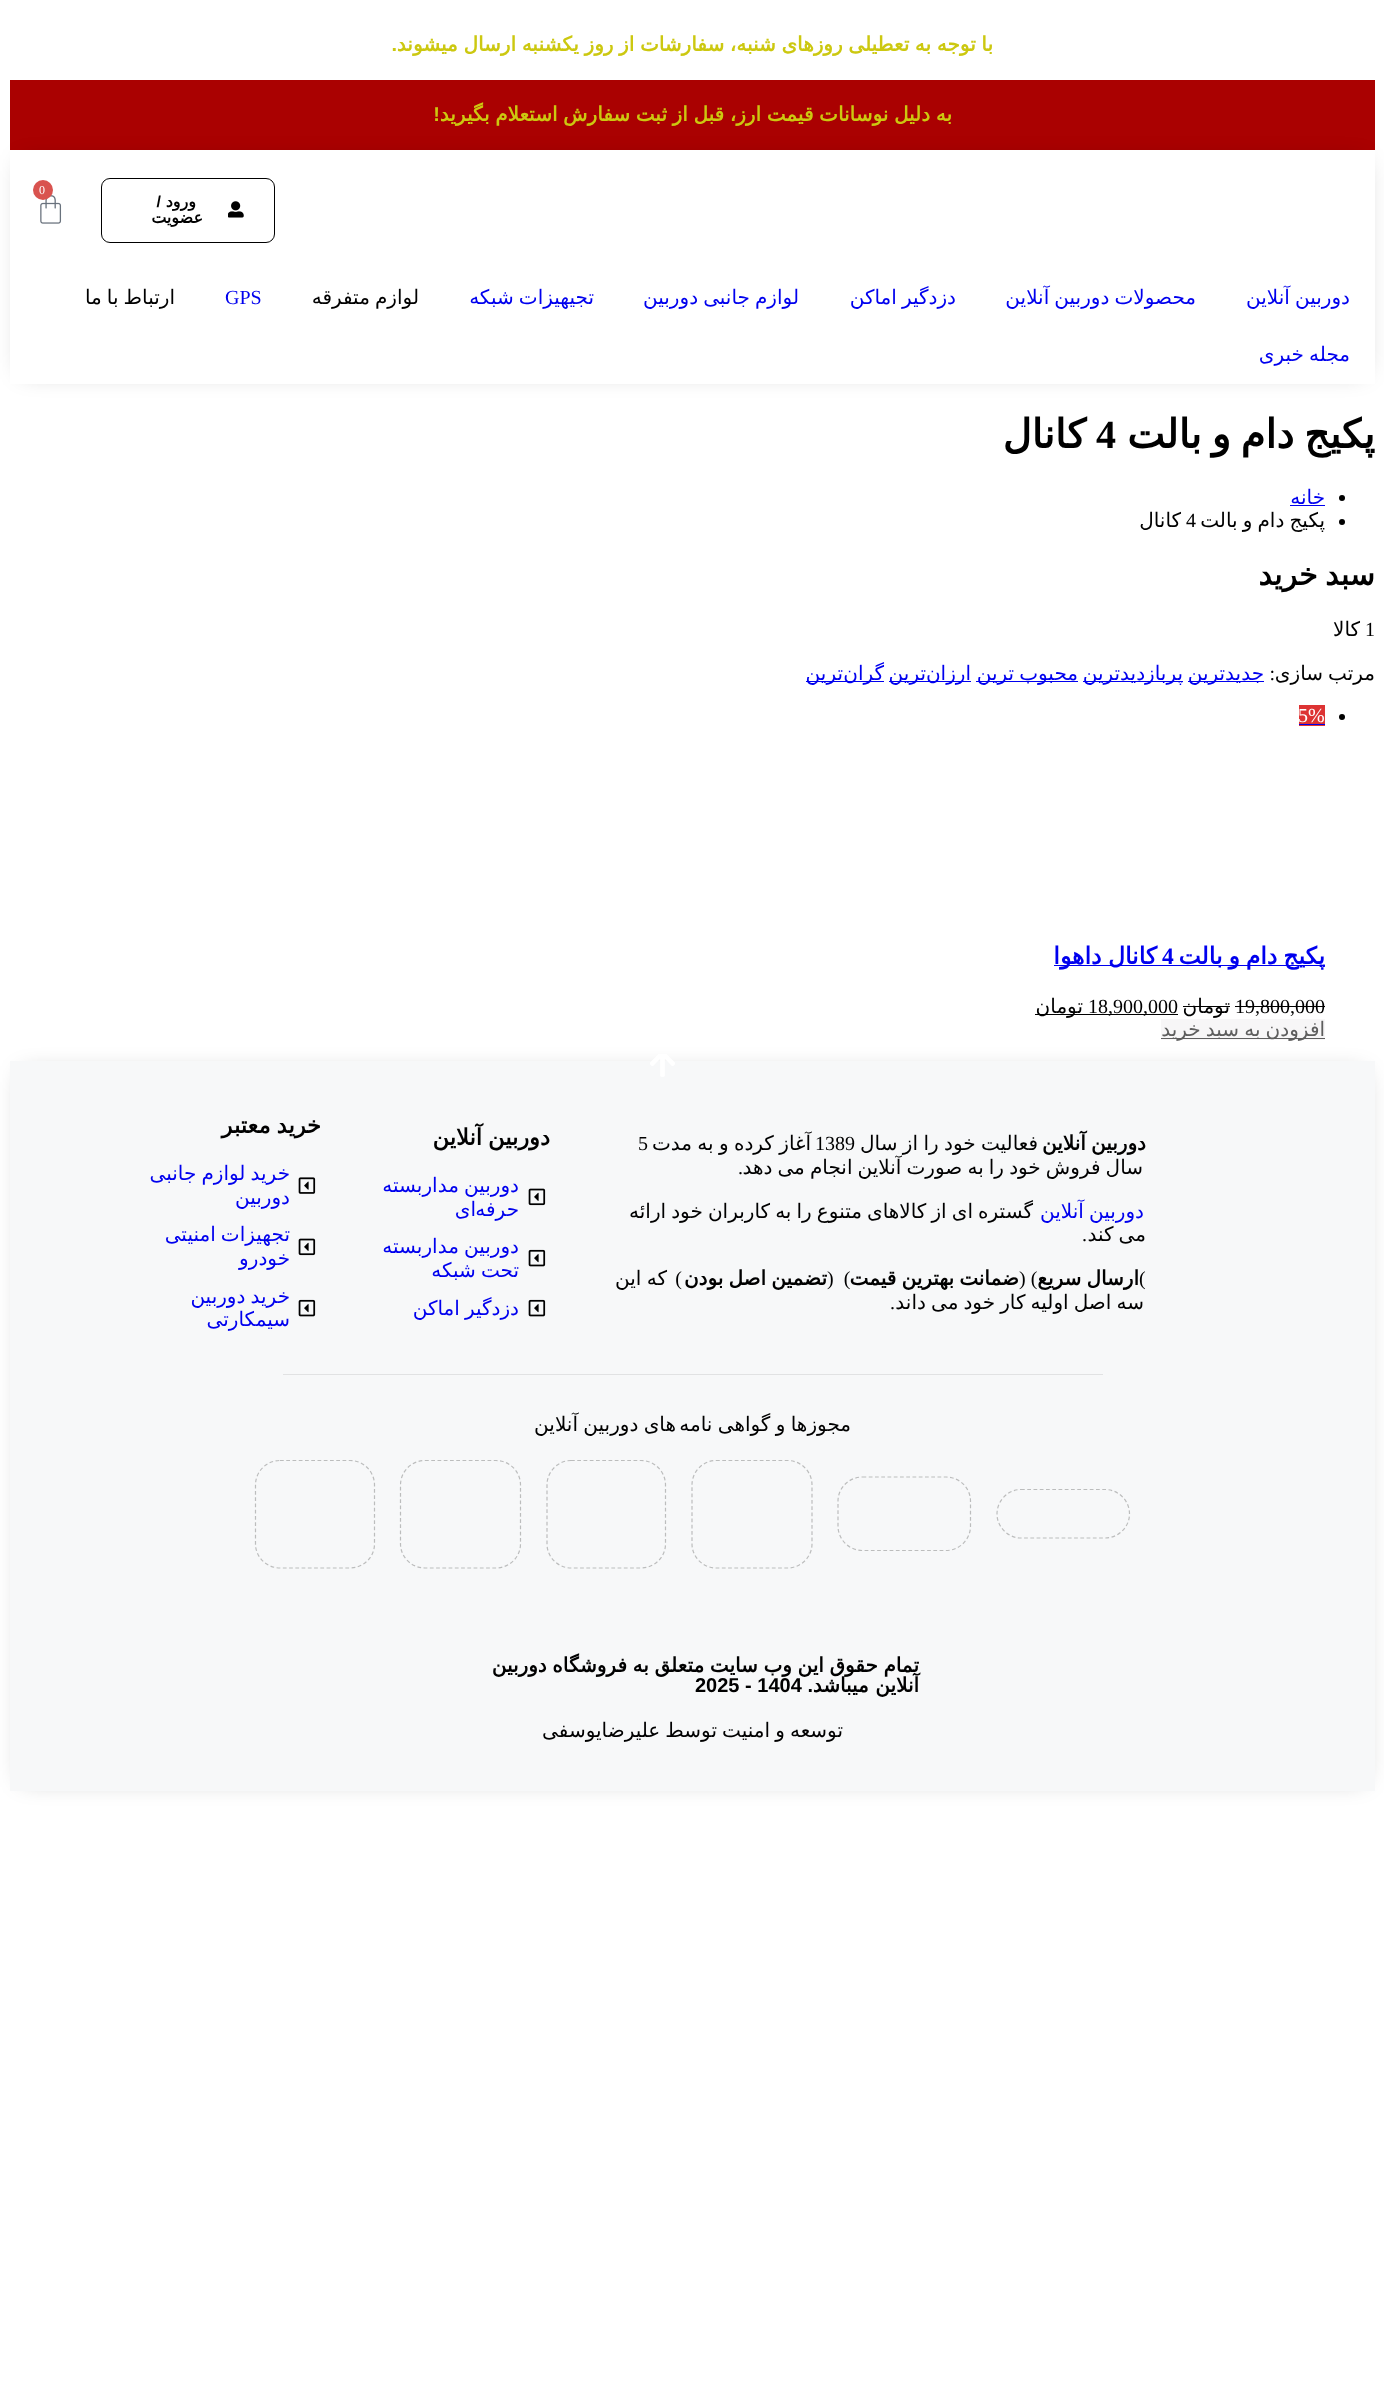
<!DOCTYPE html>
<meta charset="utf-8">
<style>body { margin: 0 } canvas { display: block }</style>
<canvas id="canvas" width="1384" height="2391"></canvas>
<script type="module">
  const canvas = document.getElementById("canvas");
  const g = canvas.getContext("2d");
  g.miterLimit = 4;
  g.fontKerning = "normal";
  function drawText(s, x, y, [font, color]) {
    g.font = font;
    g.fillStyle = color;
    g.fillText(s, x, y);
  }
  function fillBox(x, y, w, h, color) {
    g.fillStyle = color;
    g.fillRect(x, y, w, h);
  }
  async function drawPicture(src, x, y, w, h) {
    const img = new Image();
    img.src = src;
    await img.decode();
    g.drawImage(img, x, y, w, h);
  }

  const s1 = ["bold 20px DejaVu Sans", "#CCC810"];
  const s2 = ["bold 20px Liberation Sans", "#CCC810"];
  const s3 = ["12px Liberation Serif", "#FFFFFF"];
  const s4 = ["bold 16px DejaVu Sans", "#000000"];
  const s5 = ["bold 16px Liberation Sans", "#000000"];
  const s6 = ["20px DejaVu Sans", "#0000EE"];
  const s7 = ["20px DejaVu Sans", "#000000"];
  const s8 = ["20px Liberation Serif", "#0000EE"];
  const s9 = ["bold 40px DejaVu Sans", "#000000"];
  const s10 = ["bold 40px Liberation Serif", "#000000"];
  const s11 = ["20px Liberation Serif", "#000000"];
  const s12 = ["bold 30px DejaVu Sans", "#000000"];
  const s13 = ["20px Liberation Serif", "#FFFFFF"];
  const s14 = ["bold 23.5px DejaVu Sans", "#0000EE"];
  const s15 = ["bold 23.5px Liberation Serif", "#0000EE"];
  const s16 = ["20px DejaVu Sans", "#5E5E5E"];
  const s17 = ["bold 20px DejaVu Sans", "#000000"];
  const s18 = ["bold 22.5px DejaVu Sans", "#000000"];
  const s19 = ["bold 20px Liberation Sans", "#000000"];

  fillBox(0, 0, 1384, 2391, "#FFFFFF");
  g.wordSpacing = "-0.75px";
  g.direction = "rtl";
  drawText("با توجه به تعطیلی روزهای شنبه، سفارشات از روز یکشنبه ارسال میشوند", 993, 51, s1);
  g.wordSpacing = "0px";
  drawText(".", 397, 51, s2);
  fillBox(10, 80, 1365, 70, "#AA0101");
  g.wordSpacing = "-0.75px";
  drawText("به دلیل نوسانات قیمت ارز، قبل از ثبت سفارش استعلام بگیرید", 952, 121, s1);
  g.wordSpacing = "0px";
  drawText("!", 440, 121, s2);
  g.save();
  g.beginPath();
  g.moveTo(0, 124);
  g.lineTo(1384, 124);
  g.lineTo(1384, 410);
  g.lineTo(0, 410);
  g.closePath();
  g.moveTo(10, 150);
  g.lineTo(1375, 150);
  g.lineTo(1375, 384);
  g.lineTo(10, 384);
  g.closePath();
  g.clip("evenodd");
  g.fillStyle = "rgba(0, 0, 0, 0.3)";
  g.filter = "blur(12.5px)";
  g.beginPath();
  g.rect(23, 163, 1340, 208);
  g.fill();
  g.filter = "none";
  g.restore();
  await drawPicture("pic1.png", 40, 195, 22, 29);
  g.fillStyle = "#D9534F";
  g.beginPath();
  g.arc(43, 190, 10, 0, Math.PI * 2);
  g.fill();
  g.direction = "ltr";
  drawText("0", 39, 194, s3);
  g.beginPath();
  g.roundRect(101.5, 178.5, 173, 64, 8.5);
  g.strokeStyle = "#000000";
  g.stroke();
  await drawPicture("pic2.png", 228, 201, 16, 17);
  g.direction = "rtl";
  drawText("ورود", 196, 207, s4);
  drawText("/", 161, 207, s5);
  drawText("عضویت", 203, 223, s4);
  g.wordSpacing = "-1.25px";
  drawText("دوربین آنلاین", 1350, 304, s6);
  drawText("محصولات دوربین آنلاین", 1196, 304, s6);
  drawText("دزدگیر اماکن", 956, 304, s6);
  drawText("لوازم جانبی دوربین", 799, 304, s6);
  drawText("تجیهیزات شبکه", 594, 304, s6);
  drawText("لوازم متفرقه", 419, 304, s7);
  g.wordSpacing = "0px";
  g.direction = "ltr";
  drawText("GPS", 225, 304, s8);
  g.wordSpacing = "-1.25px";
  g.direction = "rtl";
  drawText("ارتباط با ما", 175, 304, s7);
  drawText("مجله خبری", 1350, 361, s6);
  g.wordSpacing = "-3px";
  drawText("پکیج دام و بالت", 1375, 448, s9);
  g.wordSpacing = "0px";
  g.direction = "ltr";
  drawText("4", 1096, 448, s10);
  g.direction = "rtl";
  drawText("کانال", 1086, 448, s9);
  g.beginPath();
  g.arc(1342, 498, 3, 0, Math.PI * 2);
  g.fill();
  drawText("خانه", 1325, 504, s6);
  fillBox(1290, 505, 35, 1, "#0000EE");
  g.fillStyle = "#000000";
  g.beginPath();
  g.arc(1342, 522, 3, 0, Math.PI * 2);
  g.fill();
  g.wordSpacing = "-1.25px";
  drawText("پکیج دام و بالت", 1325, 527, s7);
  g.wordSpacing = "0px";
  g.direction = "ltr";
  drawText("4", 1186, 527, s11);
  g.direction = "rtl";
  drawText("کانال", 1181, 527, s7);
  g.wordSpacing = "-2px";
  drawText("سبد خرید", 1375, 585, s12);
  g.wordSpacing = "0px";
  g.direction = "ltr";
  drawText("1", 1365, 636, s11);
  g.direction = "rtl";
  drawText("کالا", 1360, 636, s7);
  drawText("مرتب", 1375, 680, s7);
  drawText("سازی", 1323, 680, s7);
  drawText(":", 1275, 680, s11);
  fillBox(1188, 681, 76, 1, "#0000EE");
  drawText("جدیدترین", 1264, 680, s6);
  fillBox(1083, 681, 100, 1, "#0000EE");
  drawText("پربازدیدترین", 1183, 680, s6);
  fillBox(976, 681, 102, 1, "#0000EE");
  g.wordSpacing = "-1.25px";
  drawText("محبوب ترین", 1078, 680, s6);
  fillBox(889, 681, 82, 1, "#0000EE");
  g.wordSpacing = "0px";
  drawText("ارزان", 971, 680, s6);
  drawText("ترین", 926, 680, s6);
  fillBox(806, 681, 78, 1, "#0000EE");
  drawText("گران", 884, 680, s6);
  drawText("ترین", 843, 680, s6);
  g.fillStyle = "#000000";
  g.beginPath();
  g.arc(1342, 717, 3, 0, Math.PI * 2);
  g.fill();
  fillBox(1299, 705, 26, 21, "#DD3333");
  g.direction = "ltr";
  drawText("5%", 1298, 722, s13);
  fillBox(1299, 724, 26, 1, "#0000EE");
  fillBox(1054, 965, 271, 1, "#0000EE");
  g.wordSpacing = "-1.5px";
  g.direction = "rtl";
  drawText("پکیج دام و بالت", 1325, 964, s14);
  g.wordSpacing = "0px";
  g.direction = "ltr";
  drawText("4", 1162, 964, s15);
  g.wordSpacing = "-1px";
  g.direction = "rtl";
  drawText("کانال داهوا", 1157, 964, s14);
  g.wordSpacing = "0px";
  g.direction = "ltr";
  drawText("19,800,000", 1235, 1013, s11);
  fillBox(1235, 1006, 90, 1, "#000000");
  g.direction = "rtl";
  drawText("تومان", 1230, 1013, s7);
  fillBox(1183, 1006, 47, 1, "#000000");
  fillBox(1035, 1014, 143, 1, "#000000");
  g.direction = "ltr";
  drawText("18,900,000", 1088, 1013, s11);
  g.direction = "rtl";
  drawText("تومان", 1083, 1013, s7);
  fillBox(1161, 1019, 164, 21, "#F7F6F7");
  fillBox(1161, 1038, 164, 1, "#5E5E5E");
  g.wordSpacing = "-1.25px";
  drawText("افزودن به سبد خرید", 1325, 1036, s16);
  g.fillStyle = "rgba(0, 0, 0, 0.3)";
  g.filter = "blur(12.5px)";
  g.beginPath();
  g.rect(23, 1074, 1340, 705);
  g.fill();
  g.filter = "none";
  fillBox(10, 1061, 1365, 730, "#F7F8F9");
  await drawPicture("pic3.png", 650, 1054, 25, 23);
  drawText("دوربین آنلاین", 1146, 1150, s17);
  g.wordSpacing = "-1px";
  drawText("فعالیت خود را از سال", 1038, 1150, s7);
  g.wordSpacing = "0px";
  g.direction = "ltr";
  drawText("1389", 815, 1150, s11);
  g.wordSpacing = "-1px";
  g.direction = "rtl";
  drawText("آغاز کرده و به مدت", 811, 1150, s7);
  g.wordSpacing = "0px";
  g.direction = "ltr";
  drawText("5", 638, 1150, s11);
  g.wordSpacing = "-1.25px";
  g.direction = "rtl";
  drawText("سال فروش خود را به صورت آنلاین انجام می دهد", 1143, 1174, s7);
  g.wordSpacing = "0px";
  drawText(".", 743, 1174, s11);
  g.wordSpacing = "-1.25px";
  drawText("دوربین آنلاین", 1144, 1218, s6);
  drawText("گستره ای از کالاهای متنوع را به کاربران خود ارائه", 1033, 1218, s7);
  drawText("می کند", 1146, 1241, s7);
  g.wordSpacing = "0px";
  drawText(".", 1087, 1241, s11);
  g.direction = "ltr";
  drawText("(", 1139, 1285, s11);
  g.wordSpacing = "-1.25px";
  g.direction = "rtl";
  drawText("ارسال سریع", 1139, 1285, s17);
  g.wordSpacing = "0px";
  g.direction = "ltr";
  drawText(") (", 1019, 1285, s11);
  g.wordSpacing = "-1.25px";
  g.direction = "rtl";
  drawText("ضمانت بهترین قیمت", 1019, 1285, s17);
  g.wordSpacing = "0px";
  g.direction = "ltr";
  drawText(")  (", 827, 1285, s11);
  g.wordSpacing = "-1.25px";
  g.direction = "rtl";
  drawText("تضمین اصل بودن", 827, 1285, s17);
  g.wordSpacing = "0px";
  drawText(")", 682, 1285, s11);
  g.wordSpacing = "-1px";
  drawText("که این", 667, 1285, s7);
  g.wordSpacing = "-1.25px";
  drawText("سه اصل اولیه کار خود می داند", 1144, 1309, s7);
  g.wordSpacing = "0px";
  drawText(".", 895, 1309, s11);
  g.wordSpacing = "-1px";
  drawText("دوربین آنلاین", 550, 1145, s18);
  await drawPicture("pic4.png", 528, 1188, 18, 18);
  g.wordSpacing = "-1.25px";
  drawText("دوربین مداربسته", 519, 1192, s6);
  g.wordSpacing = "0px";
  drawText("حرفه", 519, 1216, s6);
  drawText("ای", 476, 1216, s6);
  await drawPicture("pic5.png", 528, 1249, 18, 18);
  g.wordSpacing = "-1.25px";
  drawText("دوربین مداربسته", 519, 1253, s6);
  drawText("تحت شبکه", 519, 1277, s6);
  await drawPicture("pic5.png", 528, 1299, 18, 18);
  drawText("دزدگیر اماکن", 519, 1315, s6);
  g.wordSpacing = "-1px";
  drawText("خرید معتبر", 321, 1133, s18);
  await drawPicture("pic6.png", 298, 1177, 18, 17);
  g.wordSpacing = "-1.25px";
  drawText("خرید لوازم جانبی", 290, 1180, s6);
  g.wordSpacing = "0px";
  drawText("دوربین", 290, 1204, s6);
  await drawPicture("pic4.png", 298, 1238, 18, 18);
  g.wordSpacing = "-1.25px";
  drawText("تجهیزات امنیتی", 290, 1241, s6);
  g.wordSpacing = "0px";
  drawText("خودرو", 290, 1265, s6);
  await drawPicture("pic5.png", 298, 1299, 18, 18);
  g.wordSpacing = "-1.25px";
  drawText("خرید دوربین", 290, 1303, s6);
  g.wordSpacing = "0px";
  drawText("سیمکارتی", 290, 1326, s6);
  fillBox(283, 1374, 820, 1, "#E1E2E3");
  g.wordSpacing = "-1px";
  drawText("مجوزها و گواهی نامه", 851, 1431, s7);
  drawText("های دوربین آنلاین", 676, 1431, s7);
  g.beginPath();
  g.moveTo(1021, 1489.5);
  g.lineTo(1105, 1489.5);
  g.bezierCurveTo(1118.5, 1489.5, 1129.5, 1500.5, 1129.5, 1514);
  g.bezierCurveTo(1129.5, 1527, 1118.5, 1538, 1105, 1538);
  g.lineTo(1021, 1538);
  g.bezierCurveTo(1008, 1538, 997, 1527, 997, 1514);
  g.bezierCurveTo(997, 1500.5, 1008, 1489.5, 1021, 1489.5);
  g.closePath();
  g.strokeStyle = "#BCBDBD";
  g.lineWidth = 1.2;
  g.setLineDash([3.75, 2.5]);
  g.stroke();
  g.beginPath();
  g.moveTo(862.5, 1477);
  g.lineTo(946, 1477);
  g.bezierCurveTo(959.5, 1477, 970.5, 1488, 970.5, 1501);
  g.lineTo(970.5, 1526);
  g.bezierCurveTo(970.5, 1539.5, 959.5, 1550.5, 946, 1550.5);
  g.lineTo(862.5, 1550.5);
  g.bezierCurveTo(849, 1550.5, 838, 1539.5, 838, 1526);
  g.lineTo(838, 1501);
  g.bezierCurveTo(838, 1488, 849, 1477, 862.5, 1477);
  g.closePath();
  g.stroke();
  g.beginPath();
  g.moveTo(716, 1460.5);
  g.lineTo(787.5, 1460.5);
  g.bezierCurveTo(801, 1460.5, 812, 1471.5, 812, 1485);
  g.lineTo(812, 1544);
  g.bezierCurveTo(812, 1557, 801, 1568, 787.5, 1568);
  g.lineTo(716, 1568);
  g.bezierCurveTo(703, 1568, 692, 1557, 692, 1544);
  g.lineTo(692, 1485);
  g.bezierCurveTo(692, 1471.5, 703, 1460.5, 716, 1460.5);
  g.closePath();
  g.stroke();
  g.beginPath();
  g.moveTo(571, 1460.5);
  g.lineTo(641, 1460.5);
  g.bezierCurveTo(654.5, 1460.5, 665.5, 1471.5, 665.5, 1485);
  g.lineTo(665.5, 1544);
  g.bezierCurveTo(665.5, 1557, 654.5, 1568, 641, 1568);
  g.lineTo(571, 1568);
  g.bezierCurveTo(558, 1568, 547, 1557, 547, 1544);
  g.lineTo(547, 1485);
  g.bezierCurveTo(547, 1471.5, 558, 1460.5, 571, 1460.5);
  g.closePath();
  g.stroke();
  g.beginPath();
  g.moveTo(425, 1460.5);
  g.lineTo(496, 1460.5);
  g.bezierCurveTo(509.5, 1460.5, 520.5, 1471.5, 520.5, 1485);
  g.lineTo(520.5, 1544);
  g.bezierCurveTo(520.5, 1557, 509.5, 1568, 496, 1568);
  g.lineTo(425, 1568);
  g.bezierCurveTo(411.5, 1568, 400.5, 1557, 400.5, 1544);
  g.lineTo(400.5, 1485);
  g.bezierCurveTo(400.5, 1471.5, 411.5, 1460.5, 425, 1460.5);
  g.closePath();
  g.stroke();
  g.beginPath();
  g.moveTo(280, 1460.5);
  g.lineTo(350, 1460.5);
  g.bezierCurveTo(363.5, 1460.5, 374.5, 1471.5, 374.5, 1485);
  g.lineTo(374.5, 1544);
  g.bezierCurveTo(374.5, 1557, 363.5, 1568, 350, 1568);
  g.lineTo(280, 1568);
  g.bezierCurveTo(266.5, 1568, 255.5, 1557, 255.5, 1544);
  g.lineTo(255.5, 1485);
  g.bezierCurveTo(255.5, 1471.5, 266.5, 1460.5, 280, 1460.5);
  g.closePath();
  g.stroke();
  g.wordSpacing = "-0.75px";
  drawText("تمام حقوق این وب سایت متعلق به فروشگاه دوربین", 919, 1672, s17);
  g.wordSpacing = "0px";
  drawText("آنلاین میباشد", 919, 1692, s17);
  drawText(".", 813, 1692, s19);
  g.direction = "ltr";
  drawText("2025 - 1404", 695, 1692, s19);
  g.wordSpacing = "-1.25px";
  g.direction = "rtl";
  drawText("توسعه و امنیت توسط علیرضایوسفی", 843, 1737, s7);
</script>
